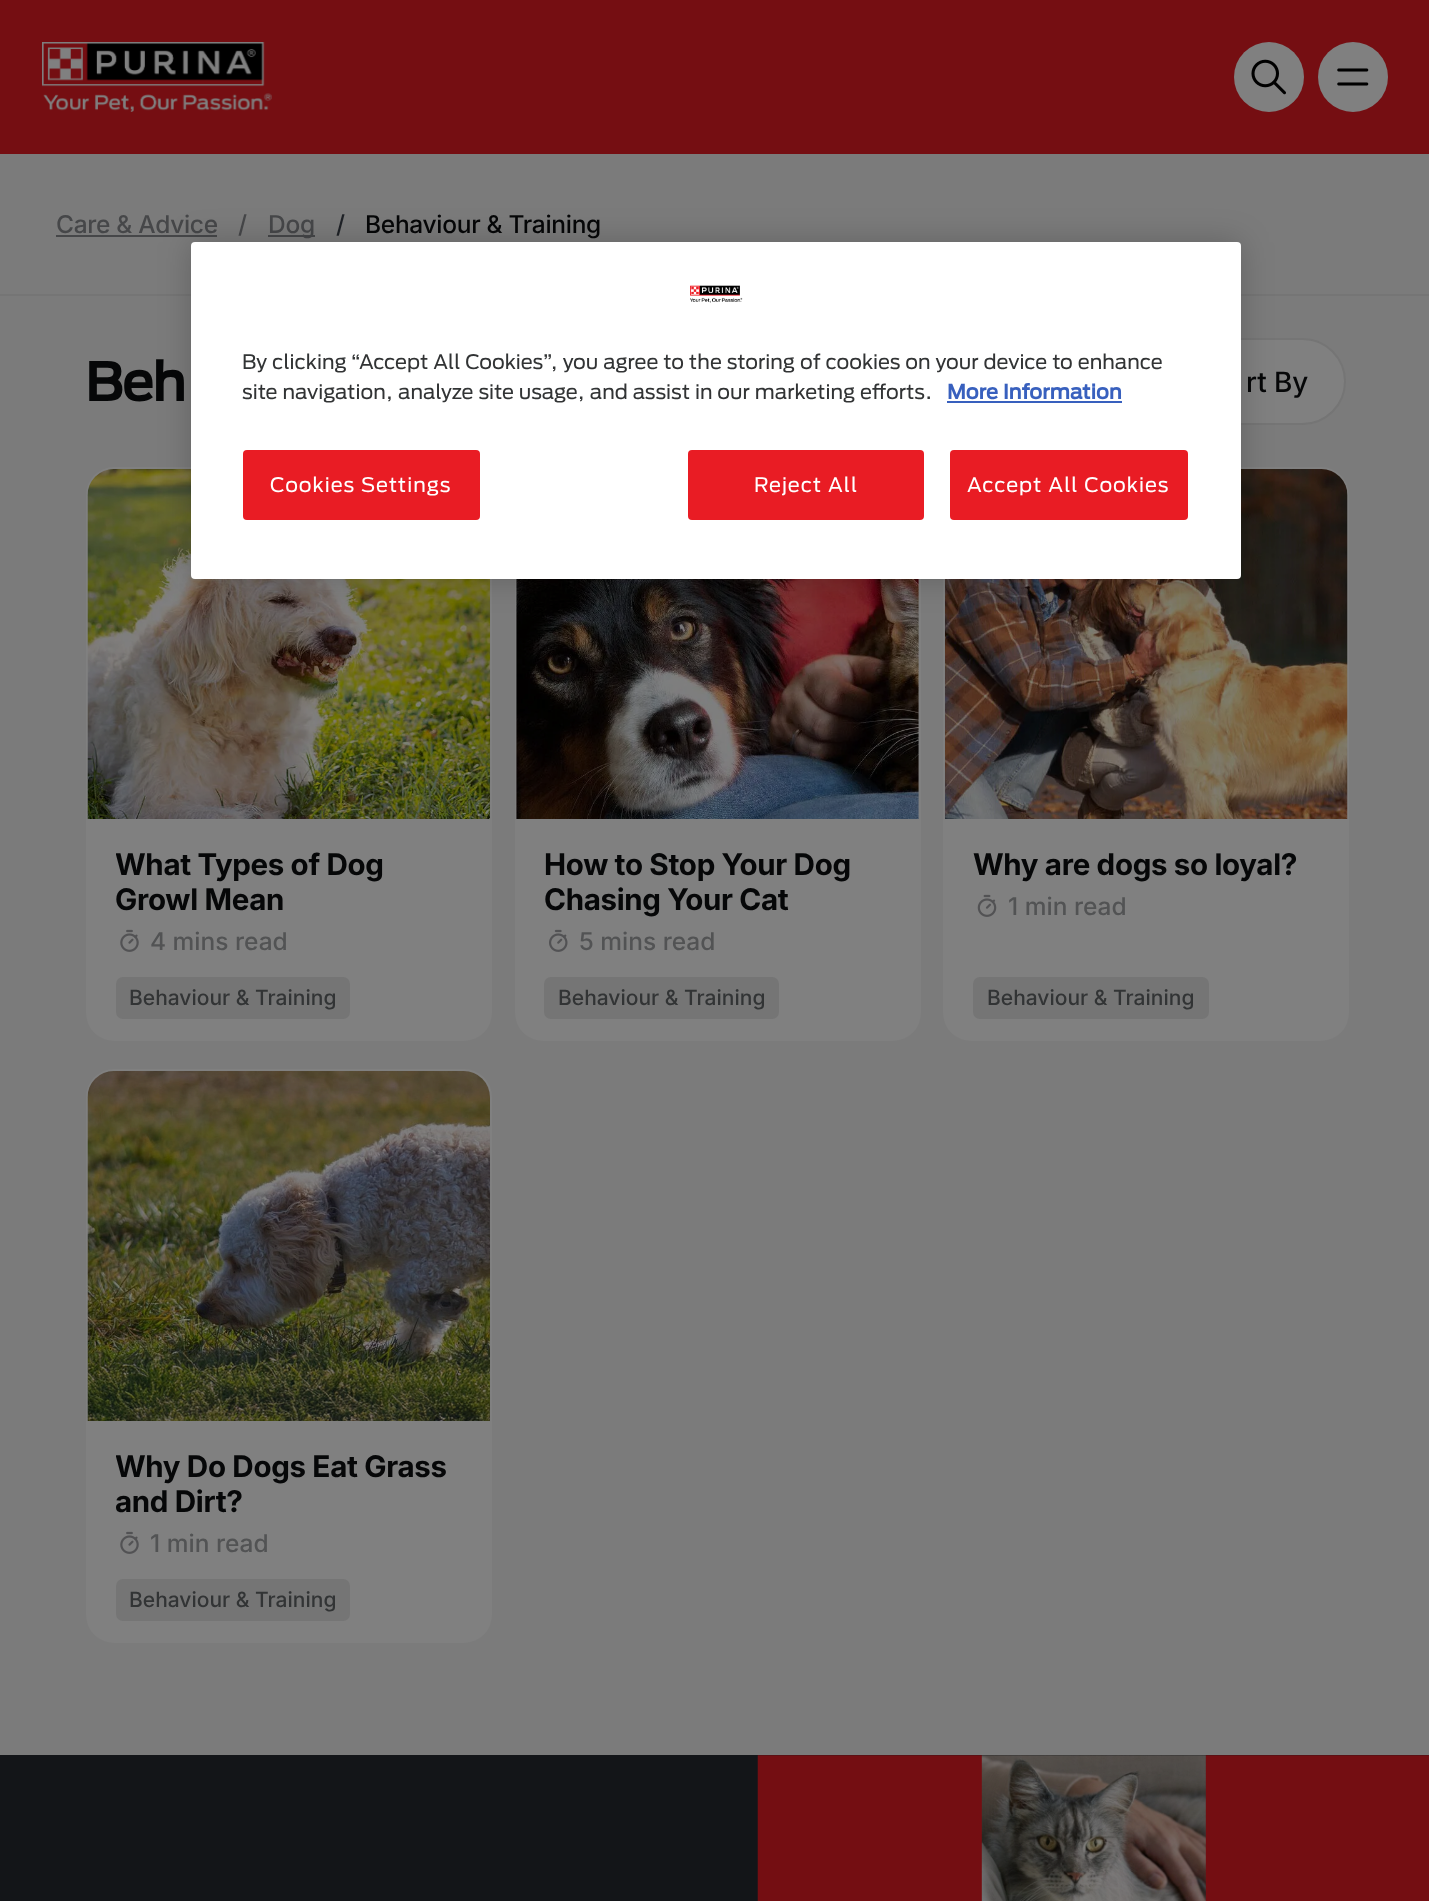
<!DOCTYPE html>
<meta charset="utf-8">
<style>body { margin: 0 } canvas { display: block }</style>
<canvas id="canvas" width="1429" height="1901"></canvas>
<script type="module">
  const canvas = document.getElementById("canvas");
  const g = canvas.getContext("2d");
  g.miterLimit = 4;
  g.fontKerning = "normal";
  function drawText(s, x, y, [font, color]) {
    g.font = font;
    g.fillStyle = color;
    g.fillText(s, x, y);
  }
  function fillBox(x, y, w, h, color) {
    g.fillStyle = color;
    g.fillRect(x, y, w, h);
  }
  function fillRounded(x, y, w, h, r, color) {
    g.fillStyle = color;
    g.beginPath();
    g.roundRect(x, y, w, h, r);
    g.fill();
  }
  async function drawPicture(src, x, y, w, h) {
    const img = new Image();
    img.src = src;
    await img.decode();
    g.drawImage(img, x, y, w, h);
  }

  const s1 = ["500 24.5px Inter", "#464749"];
  const s2 = ["500 24.5px Inter", "#1F2227"];
  const s3 = ["500 24.5px Inter", "#060708"];
  const s4 = ["bold 52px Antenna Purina", "#060708"];
  const s5 = ["500 28px 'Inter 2'", "#060708"];
  const s6 = ["bold 29.75px Inter", "#060708"];
  const s7 = ["500 24.5px Inter", "#525354"];
  const s8 = ["500 21px Inter", "#323435"];
  const s9 = ["19.9px Antenna Purina", "#323435"];
  const s10 = ["bold 19.9px Antenna Purina", "#3860BE"];
  const s11 = ["19.9px Antenna Purina", "#FFFFFF"];

  fillBox(0, 0, 1429, 1901, "#7B7B7B");
  fillBox(0, 0, 1429, 154, "#750E12");
  await drawPicture("pic1.png", 42, 42, 230, 70);
  g.fillStyle = "#808080";
  g.beginPath();
  g.arc(1269, 77, 35, 0, Math.PI * 2);
  g.fill();
  await drawPicture("pic2.png", 1251, 59, 35, 36);
  g.beginPath();
  g.arc(1353, 77, 35, 0, Math.PI * 2);
  g.fill();
  await drawPicture("pic3.png", 1337, 68, 32, 18);
  fillBox(0, 294, 1429, 2, "#757575");
  g.letterSpacing = "-0.3px";
  drawText("Care & Advice", 56, 233, s1);
  fillBox(56, 235, 161, 2, "#464749");
  drawText("/", 238, 233, s1);
  fillBox(268, 235, 47, 2, "#464749");
  drawText("Dog", 268, 233, s1);
  drawText("/", 336, 233, s2);
  drawText("Behaviour & Training", 365, 233, s3);
  g.letterSpacing = "-1px";
  drawText("Beh", 85, 401, s4);
  g.fillStyle = "#808080";
  g.beginPath();
  g.roundRect(1140, 339, 205, 85, 42.5);
  g.fill();
  g.strokeStyle = "#757575";
  g.lineWidth = 2;
  g.stroke();
  g.letterSpacing = "0px";
  drawText("rt By", 1246, 392, s5);
  fillRounded(86, 467, 406, 574, 28, "#808080");
  await drawPicture("pic4.png", 87, 469, 403, 350);
  g.save();
  g.beginPath();
  g.rect(116, 847, 346, 70);
  g.clip();
  g.letterSpacing = "-0.3px";
  drawText("What Types of Dog", 115, 875, s6);
  g.restore();
  g.letterSpacing = "-0.3px";
  drawText("Growl Mean", 115, 910, s6);
  await drawPicture("pic5.png", 120, 929, 19, 23);
  g.letterSpacing = "0px";
  drawText("4 mins read", 150, 950, s7);
  fillRounded(116, 977, 234, 42, 7, "#757575");
  drawText("Behaviour & Training", 129, 1005, s8);
  fillRounded(515, 467, 406, 574, 28, "#808080");
  await drawPicture("pic6.png", 516, 579, 403, 240);
  g.letterSpacing = "-0.3px";
  drawText("How to Stop Your Dog", 544, 875, s6);
  drawText("Chasing Your Cat", 544, 910, s6);
  await drawPicture("pic7.png", 549, 929, 19, 23);
  g.letterSpacing = "0px";
  drawText("5 mins read", 579, 950, s7);
  fillRounded(544, 977, 235, 42, 7, "#757575");
  drawText("Behaviour & Training", 558, 1005, s8);
  fillRounded(943, 467, 406, 574, 28, "#808080");
  await drawPicture("pic8.png", 945, 469, 403, 350);
  g.letterSpacing = "-0.3px";
  drawText("Why are dogs so loyal?", 973, 875, s6);
  await drawPicture("pic9.png", 977, 894, 20, 23);
  g.letterSpacing = "0px";
  drawText("1 min read", 1008, 915, s7);
  fillRounded(973, 977, 236, 42, 7, "#757575");
  drawText("Behaviour & Training", 987, 1005, s8);
  fillRounded(86, 1069, 406, 574, 28, "#808080");
  await drawPicture("pic10.png", 87, 1071, 403, 350);
  g.save();
  g.beginPath();
  g.rect(116, 1449, 346, 70);
  g.clip();
  g.letterSpacing = "-0.3px";
  drawText("Why Do Dogs Eat Grass", 115, 1477, s6);
  drawText("and Dirt?", 115, 1512, s6);
  g.restore();
  await drawPicture("pic5.png", 120, 1531, 19, 23);
  drawText("1 min read", 150, 1552, s7);
  fillRounded(116, 1579, 234, 42, 7, "#757575");
  drawText("Behaviour & Training", 129, 1607, s8);
  fillBox(0, 1755, 1429, 146, "#131518");
  await drawPicture("pic11.png", 757, 1755, 672, 146);
  g.fillStyle = "rgba(0, 0, 0, 0.2)";
  g.filter = "blur(16px)";
  g.beginPath();
  g.roundRect(191, 242, 1050, 337, 4);
  g.fill();
  g.filter = "none";
  fillRounded(191, 242, 1050, 337, 4, "#FFFFFF");
  await drawPicture("pic12.png", 690, 285, 53, 18);
  drawText("By clicking “Accept All Cookies”, you agree to the storing of cookies on your device to enhance", 242, 369, s9);
  drawText("site navigation, analyze site usage, and assist in our marketing efforts.", 242, 399, s9);
  drawText("More Information", 947, 399, s10);
  fillBox(947, 401, 175, 2, "#3860BE");
  fillRounded(243, 450, 237, 70, 4, "#E91C24");
  g.letterSpacing = "1px";
  drawText("Cookies Settings", 270, 492, s11);
  fillRounded(688, 450, 236, 70, 4, "#E91C24");
  drawText("Reject All", 754, 492, s11);
  fillRounded(950, 450, 238, 70, 4, "#E91C24");
  drawText("Accept All Cookies", 967, 492, s11);
</script>
